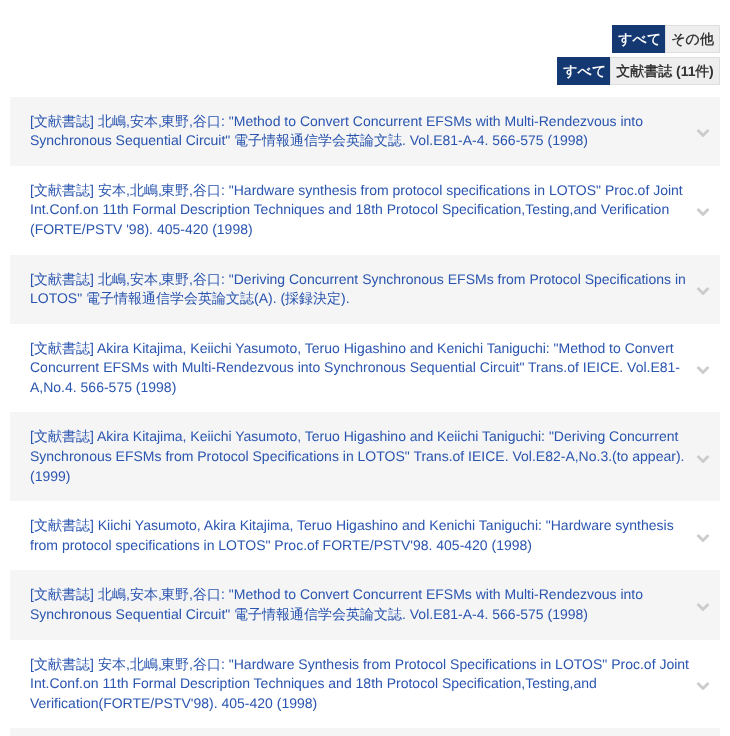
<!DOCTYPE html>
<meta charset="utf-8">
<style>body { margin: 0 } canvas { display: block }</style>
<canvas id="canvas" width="730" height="736"></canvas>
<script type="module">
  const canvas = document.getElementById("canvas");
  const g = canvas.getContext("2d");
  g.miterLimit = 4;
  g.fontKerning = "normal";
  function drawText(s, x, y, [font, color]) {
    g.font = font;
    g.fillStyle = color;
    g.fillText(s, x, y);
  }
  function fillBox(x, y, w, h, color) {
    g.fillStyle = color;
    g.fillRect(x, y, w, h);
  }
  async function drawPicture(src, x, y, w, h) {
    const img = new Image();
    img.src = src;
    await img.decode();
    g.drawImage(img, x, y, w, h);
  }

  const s1 = ["bold 14px WenQuanYi Zen Hei", "#FFFFFF"];
  const s2 = ["bold 14px WenQuanYi Zen Hei", "#333333"];
  const s3 = ["bold 14px Liberation Sans", "#333333"];
  const s4 = ["14px Liberation Sans", "#2954AF"];
  const s5 = ["500 14px WenQuanYi Zen Hei", "#2954AF"];

  fillBox(0, 0, 730, 736, "#FFFFFF");
  fillBox(612, 25, 53, 28, "#143872");
  drawText("すべて", 618, 44, s1);
  fillBox(666, 25, 54, 27, "#EEEEEE");
  g.fillStyle = "#DDDDDD";
  g.beginPath();
  g.moveTo(665, 25);
  g.lineTo(665, 53);
  g.lineTo(720, 53);
  g.lineTo(720, 27);
  g.lineTo(719, 25);
  g.closePath();
  g.moveTo(666, 26);
  g.lineTo(666, 52);
  g.lineTo(719, 52);
  g.lineTo(719, 26);
  g.closePath();
  g.fill("evenodd");
  drawText("その他", 671, 44, s2);
  fillBox(557, 57, 53, 28, "#143872");
  drawText("すべて", 563, 76, s1);
  g.fillStyle = "#EEEEEE";
  g.beginPath();
  g.rect(610.5, 57.5, 109, 27);
  g.fill();
  g.strokeStyle = "#DDDDDD";
  g.stroke();
  drawText("文献書誌", 616, 76, s2);
  drawText("(11", 676, 76, s3);
  drawText("件", 695, 76, s2);
  drawText(")", 709, 76, s3);
  fillBox(10, 97, 710, 69, "#F5F5F5");
  drawText("[", 30, 126, s4);
  drawText("文献書誌", 34, 126, s5);
  drawText("]", 90, 126, s4);
  drawText("北嶋", 98, 126, s5);
  drawText(",", 126, 126, s4);
  drawText("安本", 130, 126, s5);
  drawText(",", 158, 126, s4);
  drawText("東野", 161, 126, s5);
  drawText(",", 189, 126, s4);
  drawText("谷口", 193, 126, s5);
  drawText(": \"Method to Convert Concurrent EFSMs with Multi-Rendezvous into", 221, 126, s4);
  drawText("Synchronous Sequential Circuit\"", 30, 145, s4);
  drawText("電子情報通信学会英論文誌", 234, 145, s5);
  drawText(". Vol.E81-A-4. 566-575 (1998)", 402, 145, s4);
  await drawPicture("pic1.png", 696, 129, 14, 8);
  drawText("[", 30, 195, s4);
  drawText("文献書誌", 34, 195, s5);
  drawText("]", 90, 195, s4);
  drawText("安本", 98, 195, s5);
  drawText(",", 126, 195, s4);
  drawText("北嶋", 130, 195, s5);
  drawText(",", 158, 195, s4);
  drawText("東野", 161, 195, s5);
  drawText(",", 189, 195, s4);
  drawText("谷口", 193, 195, s5);
  drawText(": \"Hardware synthesis from protocol specifications in LOTOS\" Proc.of Joint", 221, 195, s4);
  drawText("Int.Conf.on 11th Formal Description Techniques and 18th Protocol Specification,Testing,and Verification", 30, 214, s4);
  drawText("(FORTE/PSTV '98). 405-420 (1998)", 30, 234, s4);
  await drawPicture("pic2.png", 696, 208, 14, 8);
  fillBox(10, 255, 710, 69, "#F5F5F5");
  drawText("[", 30, 284, s4);
  drawText("文献書誌", 34, 284, s5);
  drawText("]", 90, 284, s4);
  drawText("北嶋", 98, 284, s5);
  drawText(",", 126, 284, s4);
  drawText("安本", 130, 284, s5);
  drawText(",", 158, 284, s4);
  drawText("東野", 161, 284, s5);
  drawText(",", 189, 284, s4);
  drawText("谷口", 193, 284, s5);
  drawText(": \"Deriving Concurrent Synchronous EFSMs from Protocol Specifications in", 221, 284, s4);
  drawText("LOTOS\"", 30, 303, s4);
  drawText("電子情報通信学会英論文誌", 86, 303, s5);
  drawText("(A). (", 254, 303, s4);
  drawText("採録決定", 285, 303, s5);
  drawText(").", 341, 303, s4);
  await drawPicture("pic1.png", 696, 287, 14, 8);
  drawText("[", 30, 353, s4);
  drawText("文献書誌", 34, 353, s5);
  drawText("] Akira Kitajima, Keiichi Yasumoto, Teruo Higashino and Kenichi Taniguchi: \"Method to Convert", 90, 353, s4);
  drawText("Concurrent EFSMs with Multi-Rendezvous into Synchronous Sequential Circuit\" Trans.of IEICE. Vol.E81-", 30, 372, s4);
  drawText("A,No.4. 566-575 (1998)", 30, 392, s4);
  await drawPicture("pic2.png", 696, 366, 14, 8);
  fillBox(10, 412, 710, 89, "#F5F5F5");
  drawText("[", 30, 441, s4);
  drawText("文献書誌", 34, 441, s5);
  drawText("] Akira Kitajima, Keiichi Yasumoto, Teruo Higashino and Keiichi Taniguchi: \"Deriving Concurrent", 90, 441, s4);
  drawText("Synchronous EFSMs from Protocol Specifications in LOTOS\" Trans.of IEICE. Vol.E82-A,No.3.(to appear).", 30, 461, s4);
  drawText("(1999)", 30, 481, s4);
  await drawPicture("pic1.png", 696, 455, 14, 8);
  drawText("[", 30, 530, s4);
  drawText("文献書誌", 34, 530, s5);
  drawText("] Kiichi Yasumoto, Akira Kitajima, Teruo Higashino and Kenichi Taniguchi: \"Hardware synthesis", 90, 530, s4);
  drawText("from protocol specifications in LOTOS\" Proc.of FORTE/PSTV'98. 405-420 (1998)", 30, 550, s4);
  await drawPicture("pic2.png", 696, 534, 14, 8);
  fillBox(10, 570, 710, 70, "#F5F5F5");
  drawText("[", 30, 599, s4);
  drawText("文献書誌", 34, 599, s5);
  drawText("]", 90, 599, s4);
  drawText("北嶋", 98, 599, s5);
  drawText(",", 126, 599, s4);
  drawText("安本", 130, 599, s5);
  drawText(",", 158, 599, s4);
  drawText("東野", 161, 599, s5);
  drawText(",", 189, 599, s4);
  drawText("谷口", 193, 599, s5);
  drawText(": \"Method to Convert Concurrent EFSMs with Multi-Rendezvous into", 221, 599, s4);
  drawText("Synchronous Sequential Circuit\"", 30, 619, s4);
  drawText("電子情報通信学会英論文誌", 234, 619, s5);
  drawText(". Vol.E81-A-4. 566-575 (1998)", 402, 619, s4);
  await drawPicture("pic1.png", 696, 603, 14, 8);
  drawText("[", 30, 669, s4);
  drawText("文献書誌", 34, 669, s5);
  drawText("]", 90, 669, s4);
  drawText("安本", 98, 669, s5);
  drawText(",", 126, 669, s4);
  drawText("北嶋", 130, 669, s5);
  drawText(",", 158, 669, s4);
  drawText("東野", 161, 669, s5);
  drawText(",", 189, 669, s4);
  drawText("谷口", 193, 669, s5);
  drawText(": \"Hardware Synthesis from Protocol Specifications in LOTOS\" Proc.of Joint", 221, 669, s4);
  drawText("Int.Conf.on 11th Formal Description Techniques and 18th Protocol Specification,Testing,and", 30, 688, s4);
  drawText("Verification(FORTE/PSTV'98). 405-420 (1998)", 30, 708, s4);
  await drawPicture("pic2.png", 696, 682, 14, 8);
  fillBox(10, 728, 710, 8, "#F5F5F5");
</script>
